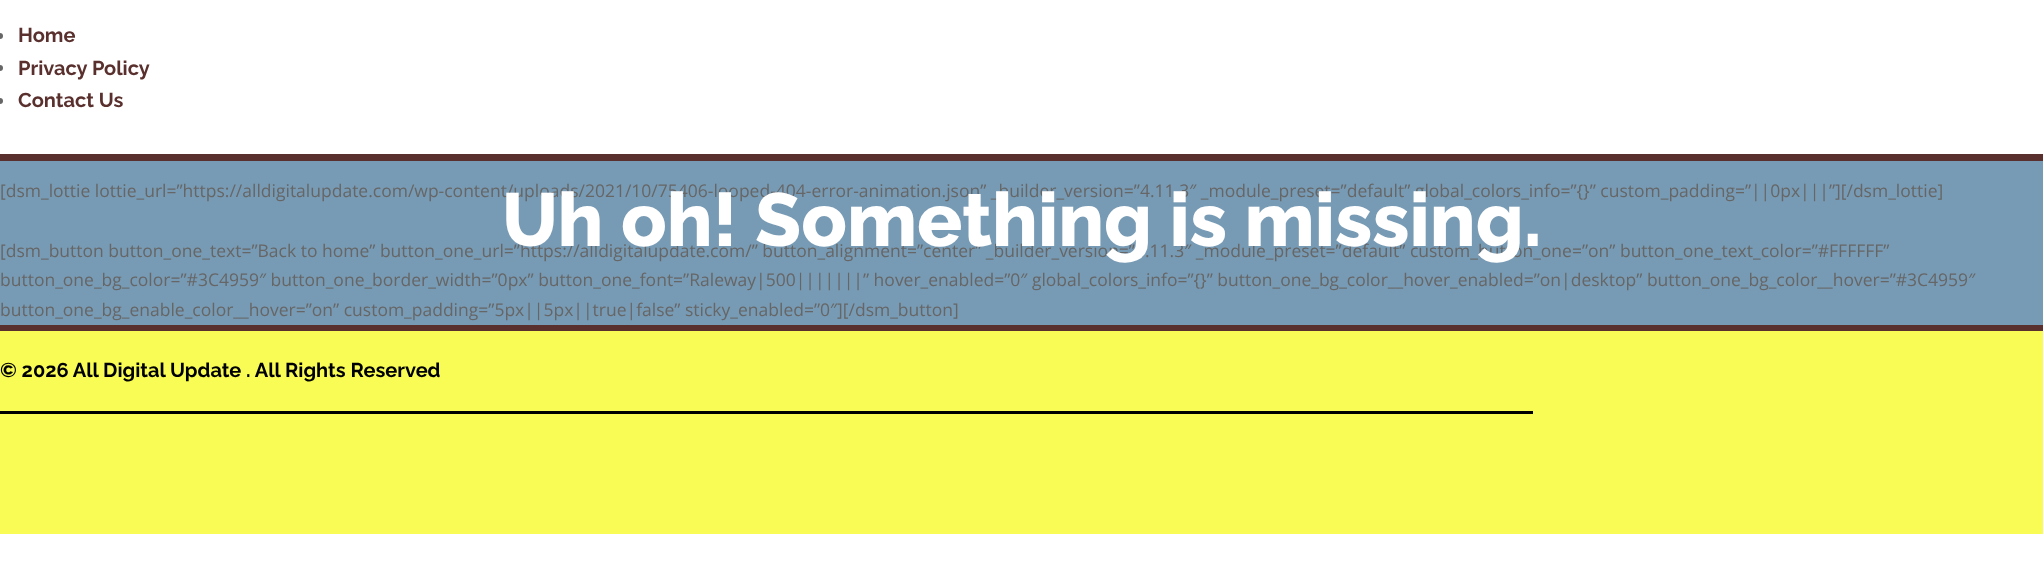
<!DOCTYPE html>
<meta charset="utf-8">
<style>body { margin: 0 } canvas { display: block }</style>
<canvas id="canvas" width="2043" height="563"></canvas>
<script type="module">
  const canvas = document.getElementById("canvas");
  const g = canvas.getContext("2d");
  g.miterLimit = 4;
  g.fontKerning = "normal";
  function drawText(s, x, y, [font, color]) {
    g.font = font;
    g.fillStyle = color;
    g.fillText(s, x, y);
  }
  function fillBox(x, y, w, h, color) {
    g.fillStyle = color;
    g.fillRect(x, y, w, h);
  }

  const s1 = ["100 20px 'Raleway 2'", "#59302D"];
  const s2 = ["17.5px Open Sans", "#666666"];
  const s3 = ["100 75px Raleway", "#FFFFFF"];
  const s4 = ["100 20px 'Raleway 2'", "#000000"];

  fillBox(0, 0, 2043, 563, "#FFFFFF");
  fillBox(0, 154, 2043, 7, "#59302D");
  g.fillStyle = "#666666";
  g.beginPath();
  g.roundRect(0, 33, 3, 6, [0, 3, 3, 0]);
  g.fill();
  drawText("Home", 18, 42, s1);
  g.fillStyle = "#666666";
  g.beginPath();
  g.roundRect(0, 65, 3, 6, [0, 3, 3, 0]);
  g.fill();
  drawText("Privacy Policy", 18, 75, s1);
  g.fillStyle = "#666666";
  g.beginPath();
  g.roundRect(0, 98, 3, 6, [0, 3, 3, 0]);
  g.fill();
  drawText("Contact Us", 18, 107, s1);
  fillBox(0, 161, 2043, 164, "#789BB5");
  drawText("[dsm_lottie lottie_url=”https://alldigitalupdate.com/wp-content/uploads/2021/10/75406-looped-404-error-animation.json” _builder_version=”4.11.3″ _module_preset=”default” global_colors_info=”{}” custom_padding=”||0px|||”][/dsm_lottie]", 0, 197, s2);
  drawText("[dsm_button button_one_text=”Back to home” button_one_url=”https://alldigitalupdate.com/” button_alignment=”center” _builder_version=”4.11.3″ _module_preset=”default” custom_button_one=”on” button_one_text_color=”#FFFFFF”", 0, 257, s2);
  drawText("Uh oh! Something is missing.", 502, 246, s3);
  drawText("button_one_bg_color=”#3C4959″ button_one_border_width=”0px” button_one_font=”Raleway|500|||||||” hover_enabled=”0″ global_colors_info=”{}” button_one_bg_color__hover_enabled=”on|desktop” button_one_bg_color__hover=”#3C4959″", 0, 286, s2);
  drawText("button_one_bg_enable_color__hover=”on” custom_padding=”5px||5px||true|false” sticky_enabled=”0″][/dsm_button]", 0, 316, s2);
  fillBox(0, 331, 2043, 203, "#F8FC54");
  fillBox(0, 325, 2043, 6, "#59302D");
  fillBox(0, 411, 1533, 3, "#000000");
  drawText("© 2026 All Digital Update . All Rights Reserved", 0, 377, s4);
</script>
